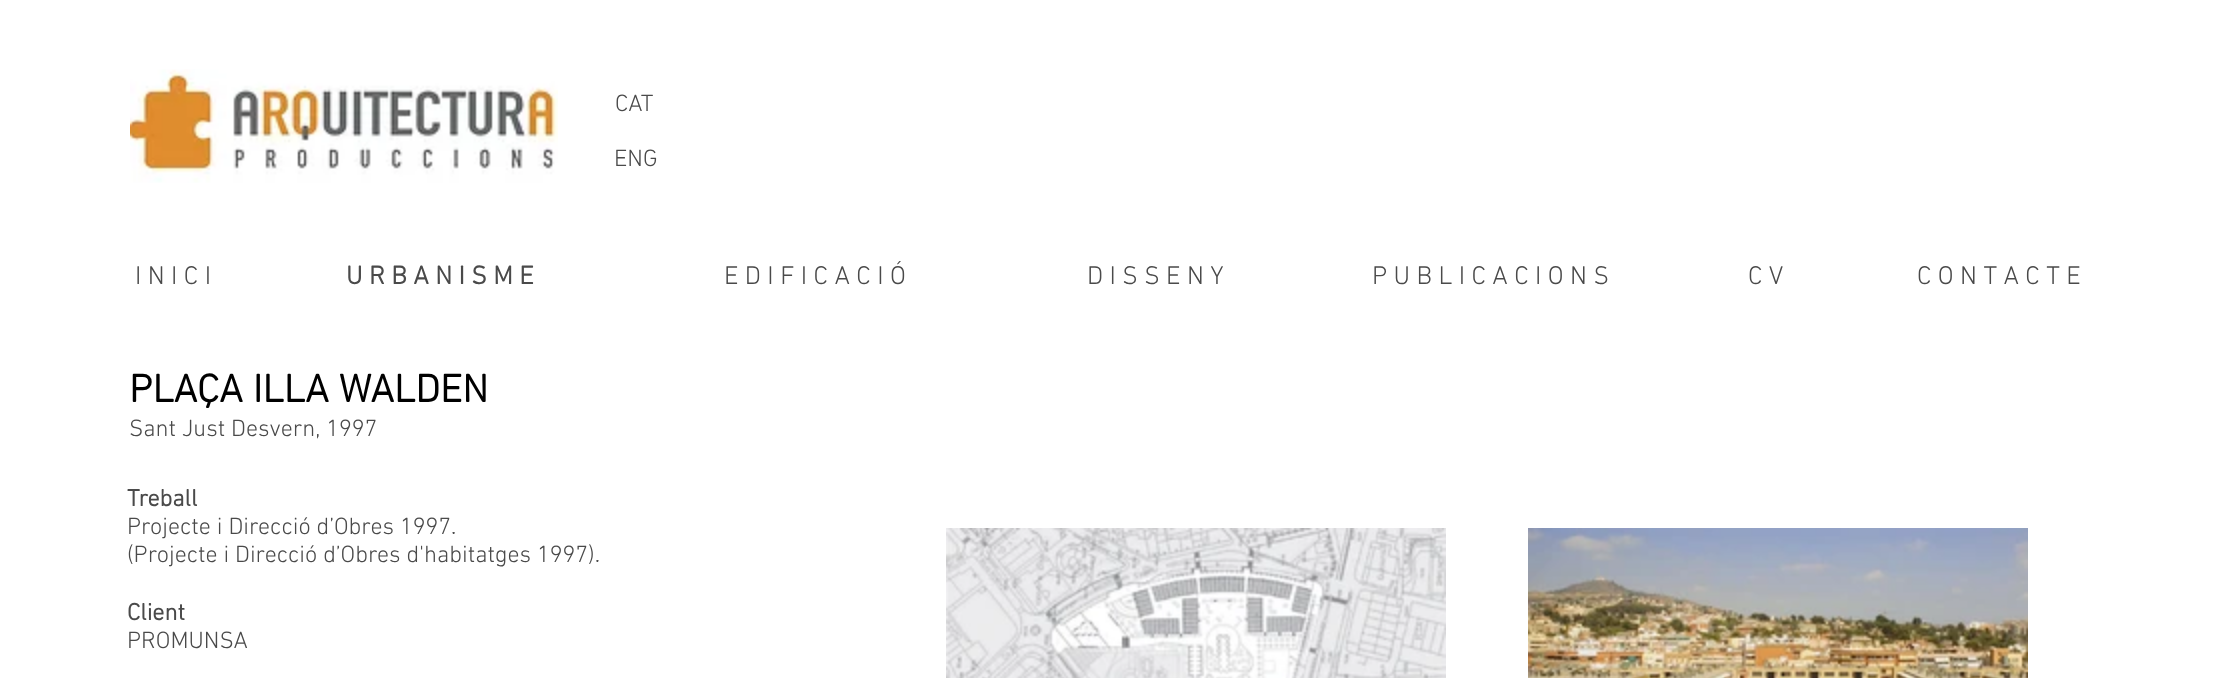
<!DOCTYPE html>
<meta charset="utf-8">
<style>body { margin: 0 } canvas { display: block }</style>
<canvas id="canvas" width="2218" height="678"></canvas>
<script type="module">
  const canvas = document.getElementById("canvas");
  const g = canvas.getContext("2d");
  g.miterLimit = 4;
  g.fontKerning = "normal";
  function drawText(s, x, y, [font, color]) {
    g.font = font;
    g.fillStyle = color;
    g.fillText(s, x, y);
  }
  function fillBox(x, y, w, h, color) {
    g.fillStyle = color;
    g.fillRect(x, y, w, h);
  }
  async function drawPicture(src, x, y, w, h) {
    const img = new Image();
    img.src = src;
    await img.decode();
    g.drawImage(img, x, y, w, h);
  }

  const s1 = ["300 24px 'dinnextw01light'", "#4A4A4A"];
  const s2 = ["300 26px 'dinnextw01light'", "#4A4A4A"];
  const s3 = ["bold 26px 'dinnextw01light'", "#4A4A4A"];
  const s4 = ["bold 40px 'dinnextw01light'", "#000000"];
  const s5 = ["bold 24px 'dinnextw01light'", "#4A4A4A"];

  fillBox(0, 0, 2218, 678, "#FFFFFF");
  await drawPicture("pic1.png", 130, 69, 428, 114);
  drawText("CAT", 615, 111, s1);
  drawText("ENG", 614, 166, s1);
  drawText("I N I C I", 135, 284, s2);
  drawText("U R B A N I S M E", 346, 284, s3);
  drawText("E D I F I C A C I Ó", 724, 284, s2);
  drawText("D I S S E N Y", 1087, 284, s2);
  drawText("P U B L I C A C I O N S", 1372, 284, s2);
  drawText("C V", 1748, 284, s2);
  drawText("C O N T A C T E", 1917, 284, s2);
  drawText("PLAÇA ILLA WALDEN", 129, 402, s4);
  drawText("Sant Just Desvern, 1997", 129, 436, s1);
  drawText("Treball", 127, 506, s5);
  drawText("Projecte i Direcció d’Obres 1997.", 127, 534, s1);
  drawText("(Projecte i Direcció d’Obres d'habitatges 1997).", 127, 562, s1);
  drawText("Client", 127, 620, s5);
  drawText("PROMUNSA", 127, 648, s1);
  await drawPicture("pic2.png", 946, 528, 500, 150);
  await drawPicture("pic3.png", 1528, 528, 500, 150);
</script>
